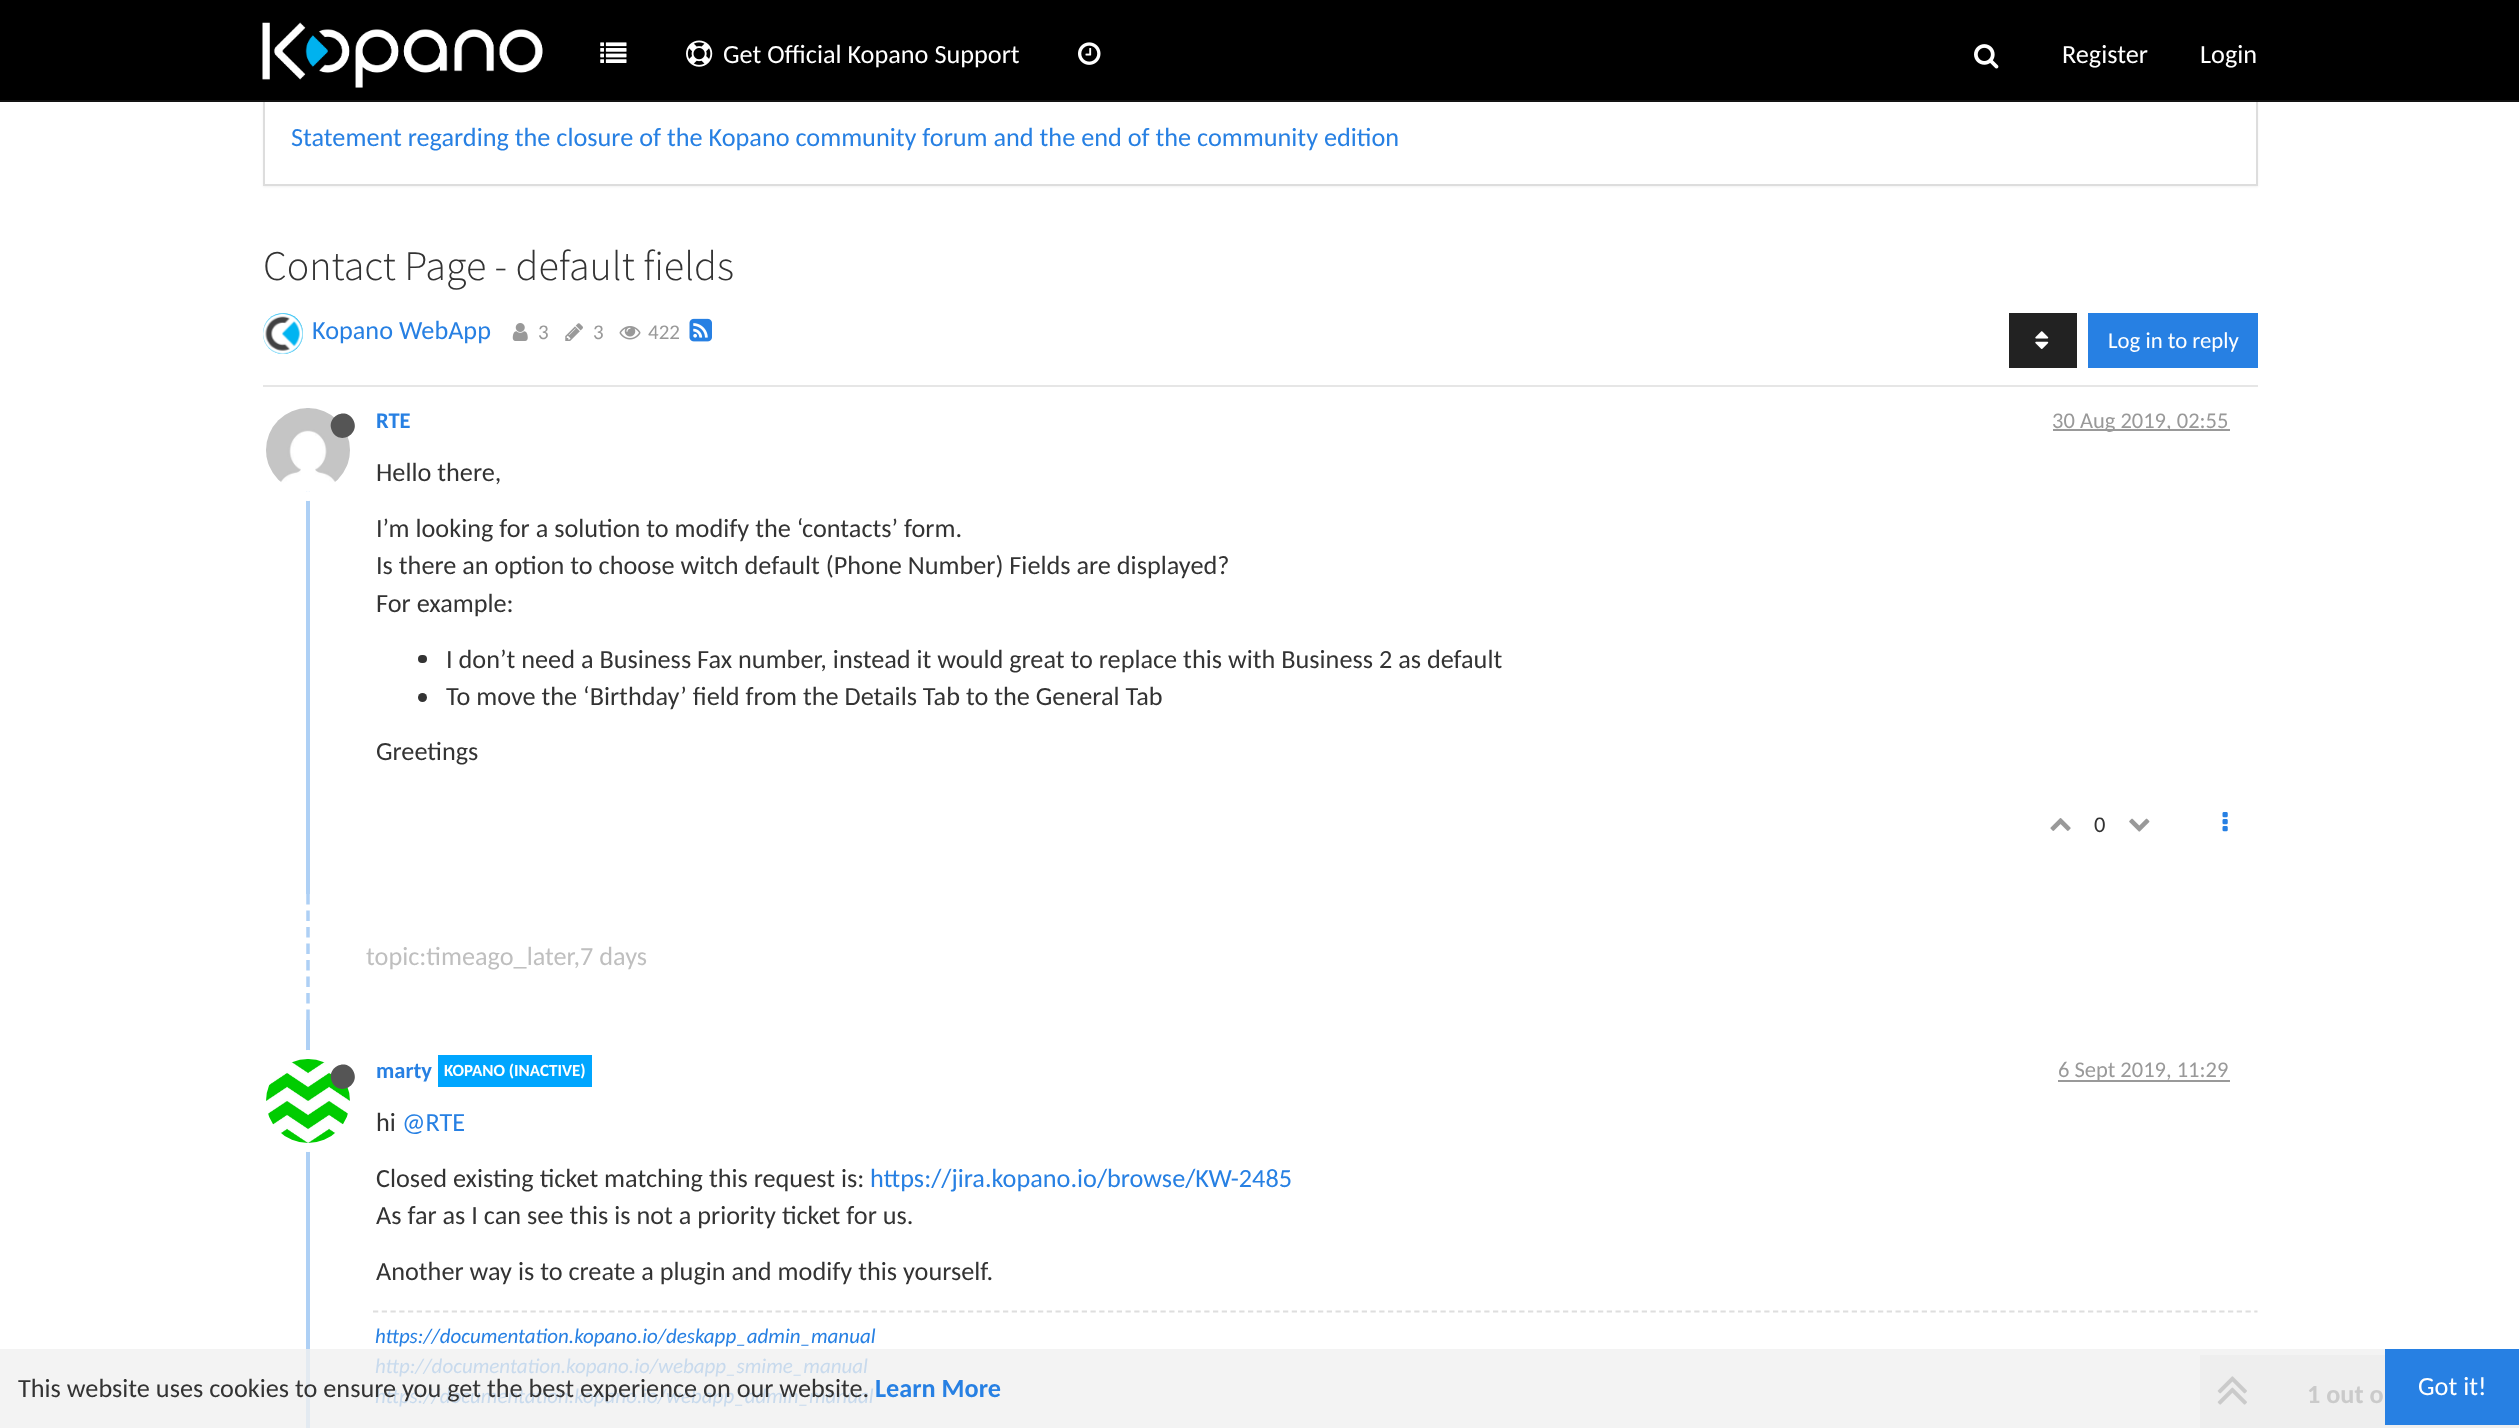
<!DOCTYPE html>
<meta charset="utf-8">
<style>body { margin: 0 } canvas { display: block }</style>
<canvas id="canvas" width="2519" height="1428"></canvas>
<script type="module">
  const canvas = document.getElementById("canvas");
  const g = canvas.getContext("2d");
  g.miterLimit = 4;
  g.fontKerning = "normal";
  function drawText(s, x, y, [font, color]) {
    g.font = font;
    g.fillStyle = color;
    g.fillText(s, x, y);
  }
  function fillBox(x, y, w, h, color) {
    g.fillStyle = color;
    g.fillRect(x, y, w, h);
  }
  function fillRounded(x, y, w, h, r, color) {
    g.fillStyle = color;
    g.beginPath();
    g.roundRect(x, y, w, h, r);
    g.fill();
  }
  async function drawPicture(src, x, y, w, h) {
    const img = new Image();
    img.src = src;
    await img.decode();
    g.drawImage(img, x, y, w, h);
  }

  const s1 = ["26.25px Carlito", "#FFFFFF"];
  const s2 = ["26.25px Carlito", "#2780E3"];
  const s3 = ["300 42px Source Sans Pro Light", "#333333"];
  const s4 = ["21px Carlito", "#999999"];
  const s5 = ["22.75px Carlito", "#FFFFFF"];
  const s6 = ["bold 22.5px Carlito", "#2780E3"];
  const s7 = ["22.5px Carlito", "#999999"];
  const s8 = ["26.25px Carlito", "#333333"];
  const s9 = ["22.5px Carlito", "#333333"];
  const s10 = ["26.25px Carlito", "#BFBFBF"];
  const s11 = ["bold 17px Carlito", "#FFFFFF"];
  const s12 = ["italic 21px Carlito", "#2780E3"];
  const s13 = ["italic 21px Carlito", "#C8DAED"];
  const s14 = ["bold 26.25px Carlito", "#CACACA"];
  const s15 = ["bold 26.25px Carlito", "#2780E3"];

  fillBox(0, 0, 2519, 1428, "#FFFFFF");
  fillBox(0, 1349, 2385, 79, "#F3F3F3");
  g.fillStyle = "rgba(0, 0, 0, 0.05)";
  g.filter = "blur(1px)";
  g.beginPath();
  g.rect(263, 93, 1995, 94);
  g.fill();
  g.filter = "none";
  fillBox(265, 102, 1991, 82, "#FFFFFF");
  g.strokeStyle = "#DDDDDD";
  g.lineWidth = 2;
  g.strokeRect(264, 92, 1993, 93);
  fillBox(0, 0, 2519, 100, "#000000");
  fillBox(0, 100, 2519, 2, "#121212");
  await drawPicture("pic1.png", 262, 22, 281, 66);
  await drawPicture("pic2.png", 600, 42, 27, 21);
  await drawPicture("pic3.png", 686, 40, 27, 27);
  drawText("Get Official Kopano Support", 723, 63, s1);
  await drawPicture("pic4.png", 1078, 42, 23, 23);
  await drawPicture("pic5.png", 1974, 44, 25, 25);
  drawText("Register", 2062, 63, s1);
  drawText("Login", 2200, 63, s1);
  drawText("Statement regarding the closure of the Kopano community forum and the end of the community edition", 291, 146, s2);
  drawText("Contact Page - default fields", 263, 280, s3);
  fillBox(263, 385, 1995, 2, "#E6E6E6");
  fillRounded(263, 313, 40, 41, 20, "#00B3F0");
  await drawPicture("pic6.png", 263, 313, 40, 41);
  drawText("Kopano WebApp", 312, 339, s2);
  await drawPicture("pic7.png", 512, 323, 16, 18);
  drawText("3", 538, 339, s4);
  await drawPicture("pic8.png", 565, 323, 18, 18);
  drawText("3", 593, 339, s4);
  await drawPicture("pic9.png", 619, 326, 22, 14);
  drawText("422", 648, 339, s4);
  await drawPicture("pic10.png", 689, 318, 23, 24);
  fillBox(2009, 313, 68, 55, "#222222");
  await drawPicture("pic11.png", 2035, 331, 14, 18);
  fillBox(2088, 313, 170, 55, "#2780E3");
  drawText("Log in to reply", 2108, 348, s5);
  fillBox(306, 404, 4, 490, "#AED0F5");
  g.beginPath();
  g.arc(308, 450, 46.5, 0, Math.PI * 2);
  g.strokeStyle = "#FFFFFF";
  g.lineWidth = 9;
  g.stroke();
  await drawPicture("pic12.png", 266, 408, 84, 84);
  g.fillStyle = "#555555";
  g.beginPath();
  g.moveTo(353, 419.5);
  g.bezierCurveTo(361, 433.5, 340.5, 445.5, 332.5, 432);
  g.bezierCurveTo(324.5, 418, 345, 406, 353, 419.5);
  g.closePath();
  g.fill();
  drawText("RTE", 376, 428, s6);
  fillBox(2053, 429, 177, 2, "#999999");
  drawText("30 Aug 2019, 02:55", 2052, 428, s7);
  drawText("Hello there,", 376, 481, s8);
  drawText("I’m looking for a solution to modify the ‘contacts’ form.", 376, 537, s8);
  drawText("Is there an option to choose witch default (Phone Number) Fields are displayed?", 376, 574, s8);
  drawText("For example:", 376, 612, s8);
  fillRounded(418, 655, 9, 8, 4, "#333333");
  drawText("I don’t need a Business Fax number, instead it would great to replace this with Business 2 as default", 446, 668, s8);
  g.beginPath();
  g.arc(422.5, 697.5, 4.5, 0, Math.PI * 2);
  g.fill();
  drawText("To move the ‘Birthday’ field from the Details Tab to the General Tab", 446, 705, s8);
  drawText("Greetings", 376, 760, s8);
  await drawPicture("pic13.png", 2050, 818, 21, 13);
  drawText("0", 2094, 832, s9);
  await drawPicture("pic14.png", 2129, 818, 21, 14);
  await drawPicture("pic15.png", 2222, 812, 6, 20);
  g.beginPath();
  g.moveTo(308, 894);
  g.lineTo(308, 1020);
  g.strokeStyle = "#AED0F5";
  g.lineWidth = 3.5;
  g.setLineDash([10.5, 6]);
  g.stroke();
  drawText("topic:timeago_later,7 days", 366, 965, s10);
  fillBox(306, 1020, 4, 329, "#AED0F5");
  fillBox(306, 1349, 4, 79, "#E3EAF1");
  g.beginPath();
  g.arc(308, 1101, 46.5, 0, Math.PI * 2);
  g.strokeStyle = "#FFFFFF";
  g.lineWidth = 9;
  g.setLineDash([]);
  g.stroke();
  await drawPicture("pic16.png", 266, 1059, 84, 84);
  g.fillStyle = "#555555";
  g.beginPath();
  g.moveTo(353, 1070.5);
  g.bezierCurveTo(361, 1084.5, 340.5, 1096.5, 332.5, 1083);
  g.bezierCurveTo(324.5, 1069, 345, 1057, 353, 1070.5);
  g.closePath();
  g.fill();
  drawText("marty", 376, 1078, s6);
  fillBox(438, 1055, 154, 32, "#00A6FF");
  drawText("KOPANO (INACTIVE)", 444, 1076, s11);
  fillBox(2058, 1080, 172, 2, "#999999");
  drawText("6 Sept 2019, 11:29", 2058, 1077, s7);
  drawText("hi", 376, 1131, s8);
  drawText("@RTE", 402, 1131, s2);
  drawText("Closed existing ticket matching this request is:", 376, 1187, s8);
  drawText("https://jira.kopano.io/browse/KW-2485", 870, 1187, s2);
  drawText("As far as I can see this is not a priority ticket for us.", 376, 1224, s8);
  drawText("Another way is to create a plugin and modify this yourself.", 376, 1280, s8);
  g.beginPath();
  g.moveTo(373, 1311.5);
  g.lineTo(2257.5, 1311.5);
  g.strokeStyle = "#DEDEDE";
  g.lineWidth = 1.8;
  g.setLineDash([5.25, 3.5]);
  g.stroke();
  drawText("https://documentation.kopano.io/deskapp_admin_manual", 375, 1343, s12);
  drawText("http://documentation.kopano.io/webapp_smime_manual", 375, 1373, s13);
  drawText("https://documentation.kopano.io/webapp_admin_manual", 375, 1403, s13);
  fillBox(2200, 1355, 319, 73, "#EEEEEE");
  await drawPicture("pic17.png", 2217, 1376, 30, 29);
  drawText("1 out o", 2307, 1403, s14);
  drawText("This website uses cookies to ensure you get the best experience on our website.", 18, 1397, s8);
  drawText("Learn More", 875, 1397, s15);
  fillBox(2385, 1349, 134, 76, "#2780E3");
  drawText("Got it!", 2418, 1395, s1);
</script>
